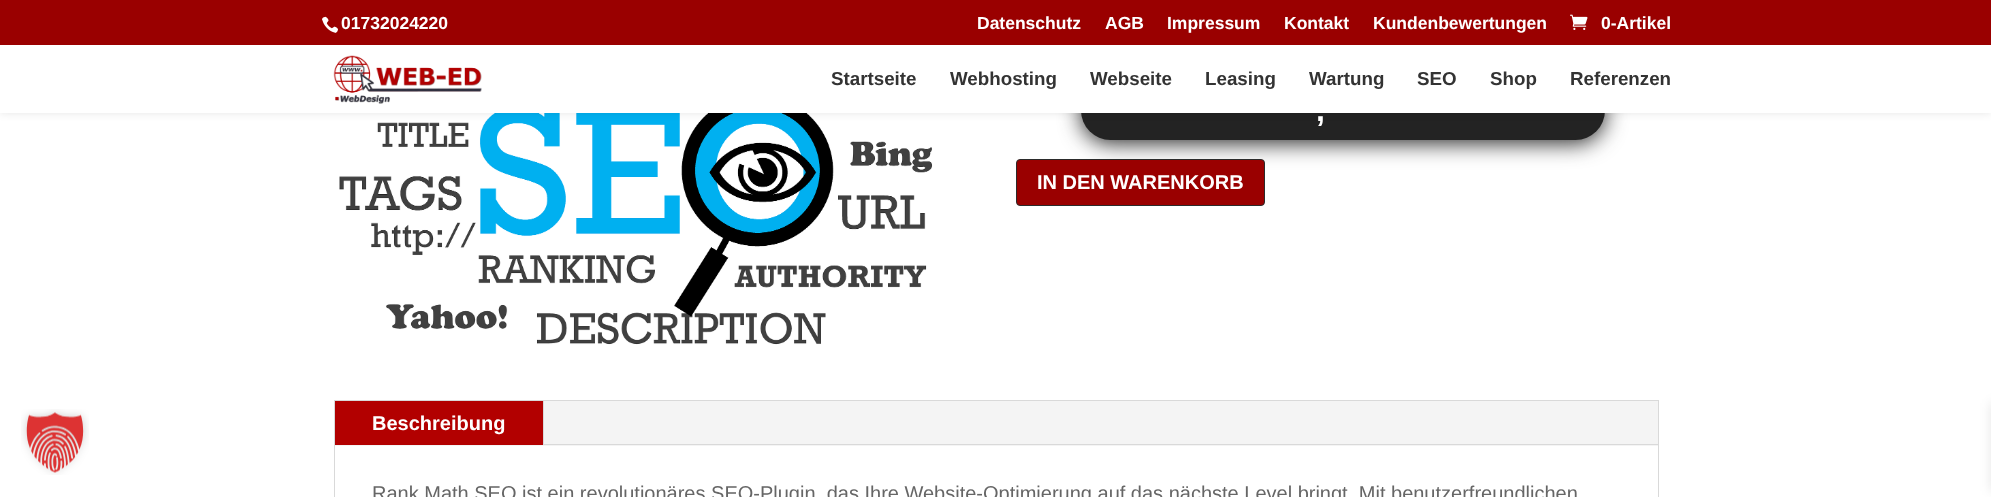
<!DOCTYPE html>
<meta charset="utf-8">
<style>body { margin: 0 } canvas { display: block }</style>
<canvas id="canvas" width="1991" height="497"></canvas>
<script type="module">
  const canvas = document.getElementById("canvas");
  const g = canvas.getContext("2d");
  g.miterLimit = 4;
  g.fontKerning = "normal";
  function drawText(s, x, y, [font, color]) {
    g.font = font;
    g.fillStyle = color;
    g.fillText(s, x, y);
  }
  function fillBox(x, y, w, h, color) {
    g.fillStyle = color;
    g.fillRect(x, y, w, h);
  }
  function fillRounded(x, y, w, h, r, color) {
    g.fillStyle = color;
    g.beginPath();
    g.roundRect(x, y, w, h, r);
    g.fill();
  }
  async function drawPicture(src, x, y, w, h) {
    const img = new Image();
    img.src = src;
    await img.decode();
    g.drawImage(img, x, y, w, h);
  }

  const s1 = ["bold 17.5px Liberation Sans", "#FFFFFF"];
  const s2 = ["bold 18.75px Liberation Sans", "#333333"];
  const s3 = ["bold 32px Liberation Sans", "#FFFFFF"];
  const s4 = ["bold 20px Liberation Sans", "#FFFFFF"];
  const s5 = ["20px Liberation Sans", "#666666"];

  fillBox(0, 0, 1991, 497, "#FFFFFF");
  await drawPicture("pic1.png", 21, 409, 68, 66);
  await drawPicture("pic5.png", 339, 113, 594, 232);
  g.fillStyle = "#232323";
  g.filter = "blur(11px)";
  g.beginPath();
  g.roundRect(1081, 84, 524, 59, 29.5);
  g.fill();
  g.filter = "none";
  fillRounded(1081, 81, 524, 59, 29.5, "#232323");
  g.fillStyle = "rgba(0, 0, 0, 0.1)";
  g.filter = "blur(4.5px)";
  g.beginPath();
  g.rect(0, 45, 1991, 68);
  g.fill();
  g.filter = "none";
  fillBox(0, 0, 1991, 45, "#9A0000");
  await drawPicture("pic2.png", 322, 16, 16, 17);
  drawText("01732024220", 341, 29, s1);
  drawText("Datenschutz", 977, 29, s1);
  drawText("AGB", 1105, 29, s1);
  drawText("Impressum", 1167, 29, s1);
  drawText("Kontakt", 1284, 29, s1);
  drawText("Kundenbewertungen", 1373, 29, s1);
  await drawPicture("pic3.png", 1570, 14, 18, 16);
  drawText("0-Artikel", 1601, 29, s1);
  fillBox(0, 45, 1991, 68, "#FFFFFF");
  await drawPicture("pic4.png", 333, 55, 149, 49);
  drawText("Startseite", 831, 85, s2);
  drawText("Webhosting", 950, 85, s2);
  drawText("Webseite", 1090, 85, s2);
  drawText("Leasing", 1205, 85, s2);
  drawText("Wartung", 1309, 85, s2);
  drawText("SEO", 1417, 85, s2);
  drawText("Shop", 1490, 85, s2);
  drawText("Referenzen", 1570, 85, s2);
  drawText(",", 1316, 121, s3);
  g.fillStyle = "#9A0000";
  g.beginPath();
  g.roundRect(1016.5, 159.5, 248, 46, 3.5);
  g.fill();
  g.strokeStyle = "#2B2B2B";
  g.stroke();
  drawText("IN DEN WARENKORB", 1037, 189, s4);
  g.strokeStyle = "#D9D9D9";
  g.strokeRect(334.5, 400.5, 1324, 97);
  fillBox(335, 401, 1323, 45, "#F4F4F4");
  fillBox(335, 401, 208, 44, "#B20000");
  fillBox(543, 401, 1, 44, "#D9D9D9");
  drawText("Beschreibung", 372, 430, s4);
  fillBox(544, 444, 1114, 1, "#D9D9D9");
  drawText("Rank Math SEO ist ein revolutionäres SEO-Plugin, das Ihre Website-Optimierung auf das nächste Level bringt. Mit benutzerfreundlichen", 372, 500, s5);
  g.fillStyle = "rgba(0, 0, 0, 0.1)";
  g.filter = "blur(6px)";
  g.beginPath();
  g.rect(1991, 403, 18, 88);
  g.fill();
  g.filter = "none";
</script>
